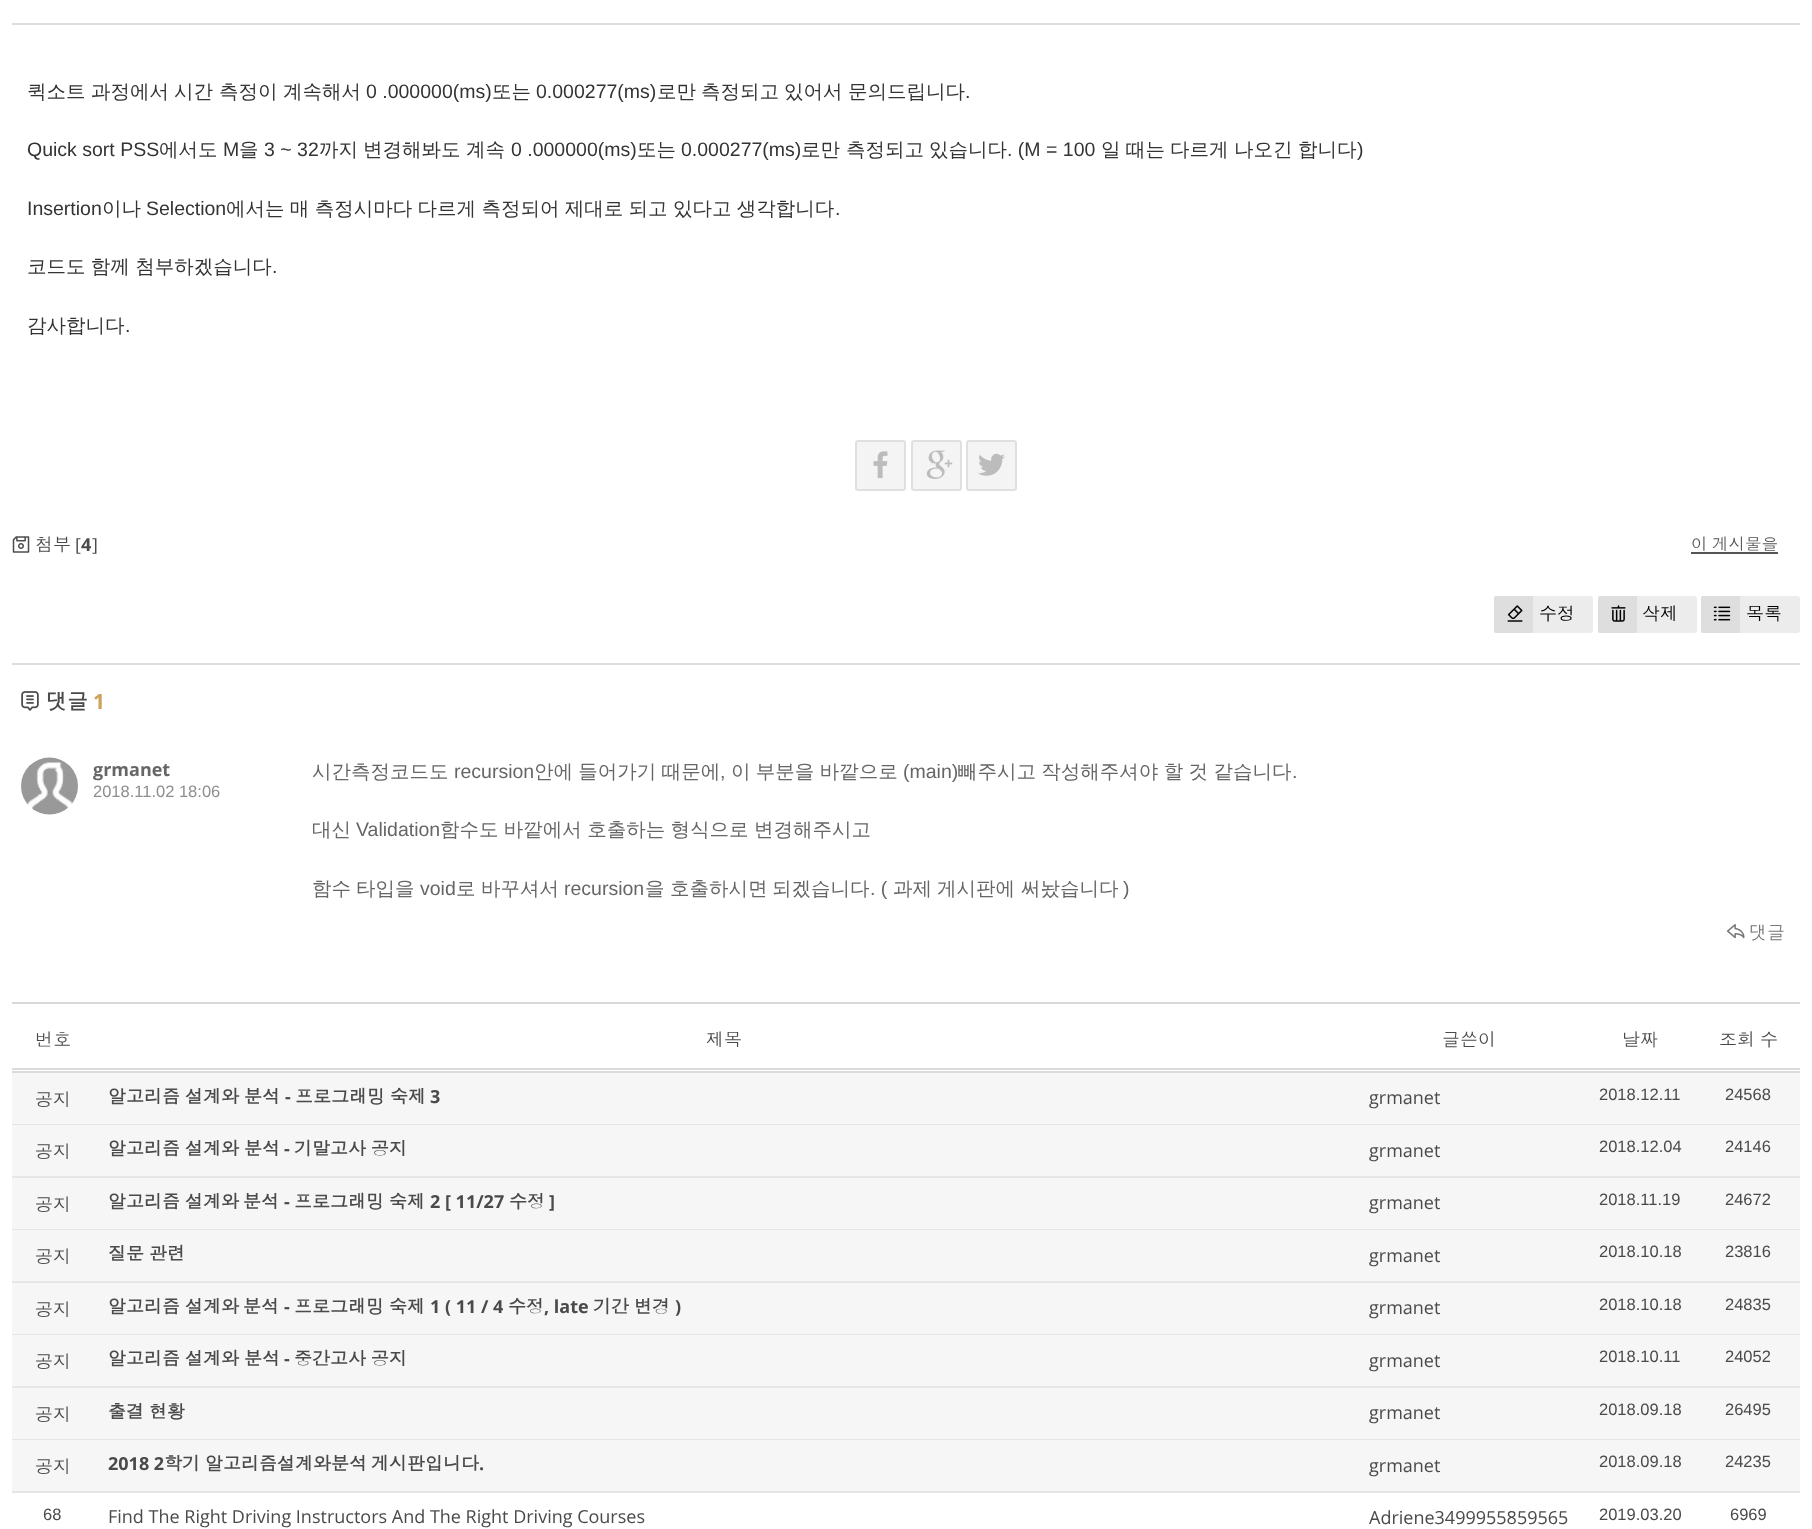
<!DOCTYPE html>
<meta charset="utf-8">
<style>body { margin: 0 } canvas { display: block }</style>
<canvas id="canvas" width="1812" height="1529"></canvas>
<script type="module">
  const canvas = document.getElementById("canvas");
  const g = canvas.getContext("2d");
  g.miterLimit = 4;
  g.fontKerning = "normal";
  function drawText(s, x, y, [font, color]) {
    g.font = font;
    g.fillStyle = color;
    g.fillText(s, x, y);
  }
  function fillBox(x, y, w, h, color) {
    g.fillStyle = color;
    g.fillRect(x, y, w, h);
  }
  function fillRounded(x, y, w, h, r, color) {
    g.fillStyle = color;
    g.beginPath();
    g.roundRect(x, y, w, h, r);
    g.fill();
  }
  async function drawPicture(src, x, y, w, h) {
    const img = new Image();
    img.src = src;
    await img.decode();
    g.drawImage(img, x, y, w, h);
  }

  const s1 = ["500 19.5px WenQuanYi Zen Hei", "#333333"];
  const s2 = ["19.5px Liberation Sans", "#333333"];
  const s3 = ["18px Dotum", "#4A4A4A"];
  const s4 = ["18px Open Sans", "#4A4A4A"];
  const s5 = ["bold 18px Open Sans", "#4A4A4A"];
  const s6 = ["16.5px Dotum", "#555555"];
  const s7 = ["18px Dotum", "#000000"];
  const s8 = ["bold 21px Dotum", "#4A4A4A"];
  const s9 = ["bold 21px Open Sans", "#CDA25A"];
  const s10 = ["bold 18px Open Sans", "#666666"];
  const s11 = ["16.5px Liberation Sans", "#8E8E8E"];
  const s12 = ["500 19.5px WenQuanYi Zen Hei", "#666666"];
  const s13 = ["19.5px Liberation Sans", "#666666"];
  const s14 = ["18px Dotum", "#767676"];
  const s15 = ["bold 18px Dotum", "#4A4A4A"];
  const s16 = ["16.5px Liberation Sans", "#4A4A4A"];

  fillBox(0, 0, 1812, 1529, "#FFFFFF");
  fillBox(12, 23, 1788, 2, "#DDDDDD");
  drawText("퀵소트", 27, 98, s1);
  drawText("과정에서", 91, 98, s1);
  drawText("시간", 174, 98, s1);
  drawText("측정이", 219, 98, s1);
  drawText("계속해서", 283, 98, s1);
  drawText("0 .000000(ms)", 366, 98, s2);
  drawText("또는", 492, 98, s1);
  drawText("0.000277(ms)", 536, 98, s2);
  drawText("로만", 657, 98, s1);
  drawText("측정되고", 701, 98, s1);
  drawText("있어서", 784, 98, s1);
  drawText("문의드립니다", 848, 98, s1);
  drawText(".", 965, 98, s2);
  drawText("Quick sort PSS", 27, 156, s2);
  drawText("에서도", 159, 156, s1);
  drawText("M", 223, 156, s2);
  drawText("을", 239, 156, s1);
  drawText("3 ~ 32", 264, 156, s2);
  drawText("까지", 319, 156, s1);
  drawText("변경해봐도", 363, 156, s1);
  drawText("계속", 466, 156, s1);
  drawText("0 .000000(ms)", 511, 156, s2);
  drawText("또는", 637, 156, s1);
  drawText("0.000277(ms)", 681, 156, s2);
  drawText("로만", 801, 156, s1);
  drawText("측정되고", 846, 156, s1);
  drawText("있습니다", 929, 156, s1);
  drawText(". (M = 100", 1007, 156, s2);
  drawText("일", 1101, 156, s1);
  drawText("때는", 1126, 156, s1);
  drawText("다르게", 1170, 156, s1);
  drawText("나오긴", 1234, 156, s1);
  drawText("합니다", 1298, 156, s1);
  drawText(")", 1357, 156, s2);
  drawText("Insertion", 27, 215, s2);
  drawText("이나", 102, 215, s1);
  drawText("Selection", 146, 215, s2);
  g.wordSpacing = "-0.5px";
  drawText("에서는 매 측정시마다 다르게 측정되어 제대로 되고 있다고 생각합니다", 226, 215, s1);
  g.wordSpacing = "0px";
  drawText(".", 835, 215, s2);
  g.wordSpacing = "-0.5px";
  drawText("코드도 함께 첨부하겠습니다", 27, 273, s1);
  g.wordSpacing = "0px";
  drawText(".", 272, 273, s2);
  drawText("감사합니다", 27, 332, s1);
  drawText(".", 125, 332, s2);
  g.fillStyle = "#F4F4F4";
  g.beginPath();
  g.roundRect(856, 441, 49, 49, 2);
  g.fill();
  g.strokeStyle = "#E0E0E0";
  g.lineWidth = 2;
  g.stroke();
  await drawPicture("pic1.png", 873, 451, 15, 28);
  g.beginPath();
  g.roundRect(912, 441, 49, 49, 2);
  g.fill();
  g.stroke();
  await drawPicture("pic2.png", 926, 450, 27, 29);
  g.beginPath();
  g.roundRect(967, 441, 49, 49, 2);
  g.fill();
  g.stroke();
  await drawPicture("pic3.png", 978, 453, 27, 23);
  await drawPicture("pic4.png", 12, 536, 18, 17);
  drawText("첨부", 35, 551, s3);
  drawText("[", 75, 551, s4);
  drawText("4", 81, 551, s5);
  drawText("]", 92, 551, s4);
  g.wordSpacing = "-1px";
  drawText("이 게시물을", 1691, 550, s6);
  fillBox(1691, 552, 87, 2, "#555555");
  fillRounded(1494, 596, 99, 37, 3, "#ECECEC");
  fillBox(1494, 596, 39, 37, "rgba(0, 0, 0, 0.06)");
  await drawPicture("pic5.png", 1507, 605, 16, 17);
  g.wordSpacing = "0px";
  drawText("수정", 1539, 620, s7);
  fillRounded(1598, 596, 99, 37, 3, "#ECECEC");
  fillBox(1598, 596, 39, 37, "rgba(0, 0, 0, 0.06)");
  await drawPicture("pic6.png", 1611, 605, 15, 17);
  drawText("삭제", 1642, 620, s7);
  fillRounded(1701, 596, 99, 37, 3, "#ECECEC");
  fillBox(1701, 596, 39, 37, "rgba(0, 0, 0, 0.06)");
  await drawPicture("pic7.png", 1713, 606, 18, 15);
  drawText("목록", 1746, 620, s7);
  fillBox(12, 663, 1788, 2, "#DDDDDD");
  await drawPicture("pic8.png", 21, 691, 18, 20);
  drawText("댓글", 46, 709, s8);
  drawText("1", 93, 709, s9);
  await drawPicture("pic9.png", 21, 757, 57, 58);
  drawText("grmanet", 93, 776, s10);
  drawText("2018.11.02 18:06", 93, 797, s11);
  drawText("시간측정코드도", 312, 778, s12);
  drawText("recursion", 454, 778, s13);
  g.wordSpacing = "-0.5px";
  drawText("안에 들어가기 때문에", 534, 778, s12);
  g.wordSpacing = "0px";
  drawText(",", 720, 778, s13);
  g.wordSpacing = "-0.5px";
  drawText("이 부분을 바깥으로", 731, 778, s12);
  g.wordSpacing = "0px";
  drawText("(main)", 903, 778, s13);
  g.wordSpacing = "-0.5px";
  drawText("빼주시고 작성해주셔야 할 것 같습니다", 958, 778, s12);
  g.wordSpacing = "0px";
  drawText(".", 1292, 778, s13);
  drawText("대신", 312, 836, s12);
  drawText("Validation", 356, 836, s13);
  g.wordSpacing = "-0.5px";
  drawText("함수도 바깥에서 호출하는 형식으로 변경해주시고", 440, 836, s12);
  g.wordSpacing = "0px";
  drawText("함수", 312, 895, s12);
  drawText("타입을", 356, 895, s12);
  drawText("void", 420, 895, s13);
  drawText("로", 456, 895, s12);
  drawText("바꾸셔서", 481, 895, s12);
  drawText("recursion", 564, 895, s13);
  drawText("을", 645, 895, s12);
  drawText("호출하시면", 670, 895, s12);
  drawText("되겠습니다", 772, 895, s12);
  drawText(". (", 870, 895, s13);
  drawText("과제", 893, 895, s12);
  drawText("게시판에", 937, 895, s12);
  drawText("써놨습니다", 1021, 895, s12);
  drawText(")", 1123, 895, s13);
  await drawPicture("pic10.png", 1726, 924, 19, 15);
  drawText("댓글", 1749, 939, s14);
  fillBox(12, 1002, 1788, 2, "#D8D8D8");
  fillBox(12, 1068, 1788, 2, "#DBDBDB");
  fillBox(12, 1071, 1788, 2, "#DBDBDB");
  drawText("번호", 35, 1046, s3);
  drawText("제목", 706, 1046, s3);
  drawText("글쓴이", 1442, 1046, s3);
  drawText("날짜", 1622, 1046, s3);
  g.wordSpacing = "-1px";
  drawText("조회 수", 1719, 1046, s3);
  fillBox(12, 1073, 1788, 51, "#F6F6F6");
  fillBox(12, 1124, 1788, 1, "#E6E6E6");
  g.wordSpacing = "0px";
  drawText("공지", 35, 1106, s3);
  g.wordSpacing = "-1px";
  drawText("알고리즘 설계와 분석", 108, 1103, s15);
  g.wordSpacing = "0px";
  drawText("-", 285, 1103, s5);
  g.wordSpacing = "-1px";
  drawText("프로그래밍 숙제", 295, 1103, s15);
  g.wordSpacing = "0px";
  drawText("3", 430, 1103, s5);
  drawText("grmanet", 1369, 1104, s4);
  drawText("2018.12.11", 1599, 1100, s16);
  drawText("24568", 1725, 1100, s16);
  fillBox(12, 1125, 1788, 51, "#F6F6F6");
  fillBox(12, 1176, 1788, 2, "#E6E6E6");
  drawText("공지", 35, 1158, s3);
  g.wordSpacing = "-1px";
  drawText("알고리즘 설계와 분석", 108, 1155, s15);
  g.wordSpacing = "0px";
  drawText("-", 284, 1155, s5);
  g.wordSpacing = "-1px";
  drawText("기말고사 공지", 294, 1155, s15);
  g.wordSpacing = "0px";
  drawText("grmanet", 1369, 1157, s4);
  drawText("2018.12.04", 1599, 1152, s16);
  drawText("24146", 1725, 1152, s16);
  fillBox(12, 1178, 1788, 51, "#F6F6F6");
  fillBox(12, 1229, 1788, 1, "#E6E6E6");
  drawText("공지", 35, 1211, s3);
  drawText("알고리즘", 108, 1208, s15);
  drawText("설계와", 185, 1208, s15);
  drawText("분석", 243, 1208, s15);
  drawText("-", 284, 1208, s5);
  drawText("프로그래밍", 294, 1208, s15);
  drawText("숙제", 389, 1208, s15);
  drawText("2 [ 11/27", 430, 1208, s5);
  drawText("수정", 509, 1208, s15);
  drawText("]", 549, 1208, s5);
  drawText("grmanet", 1369, 1209, s4);
  drawText("2018.11.19", 1599, 1205, s16);
  drawText("24672", 1725, 1205, s16);
  fillBox(12, 1230, 1788, 51, "#F6F6F6");
  fillBox(12, 1281, 1788, 2, "#E6E6E6");
  drawText("공지", 35, 1263, s3);
  g.wordSpacing = "-1px";
  drawText("질문 관련", 108, 1260, s15);
  g.wordSpacing = "0px";
  drawText("grmanet", 1369, 1262, s4);
  drawText("2018.10.18", 1599, 1257, s16);
  drawText("23816", 1725, 1257, s16);
  fillBox(12, 1283, 1788, 51, "#F6F6F6");
  fillBox(12, 1334, 1788, 1, "#E6E6E6");
  drawText("공지", 35, 1316, s3);
  drawText("알고리즘", 108, 1313, s15);
  drawText("설계와", 185, 1313, s15);
  drawText("분석", 243, 1313, s15);
  drawText("-", 284, 1313, s5);
  drawText("프로그래밍", 294, 1313, s15);
  drawText("숙제", 389, 1313, s15);
  drawText("1 ( 11 / 4", 430, 1313, s5);
  drawText("수정", 508, 1313, s15);
  drawText(", late", 544, 1313, s5);
  drawText("기간", 593, 1313, s15);
  drawText("변경", 634, 1313, s15);
  drawText(")", 675, 1313, s5);
  drawText("grmanet", 1369, 1314, s4);
  drawText("2018.10.18", 1599, 1310, s16);
  drawText("24835", 1725, 1310, s16);
  fillBox(12, 1335, 1788, 51, "#F6F6F6");
  fillBox(12, 1386, 1788, 2, "#E6E6E6");
  drawText("공지", 35, 1368, s3);
  g.wordSpacing = "-1px";
  drawText("알고리즘 설계와 분석", 108, 1365, s15);
  g.wordSpacing = "0px";
  drawText("-", 284, 1365, s5);
  g.wordSpacing = "-1px";
  drawText("중간고사 공지", 294, 1365, s15);
  g.wordSpacing = "0px";
  drawText("grmanet", 1369, 1367, s4);
  drawText("2018.10.11", 1599, 1362, s16);
  drawText("24052", 1725, 1362, s16);
  fillBox(12, 1388, 1788, 51, "#F6F6F6");
  fillBox(12, 1439, 1788, 1, "#E6E6E6");
  drawText("공지", 35, 1421, s3);
  g.wordSpacing = "-1px";
  drawText("출결 현황", 108, 1418, s15);
  g.wordSpacing = "0px";
  drawText("grmanet", 1369, 1419, s4);
  drawText("2018.09.18", 1599, 1415, s16);
  drawText("26495", 1725, 1415, s16);
  fillBox(12, 1440, 1788, 51, "#F6F6F6");
  fillBox(12, 1491, 1788, 2, "#E6E6E6");
  drawText("공지", 35, 1473, s3);
  drawText("2018 2", 108, 1470, s5);
  drawText("학기", 164, 1470, s15);
  drawText("알고리즘설계와분석", 205, 1470, s15);
  drawText("게시판입니다", 371, 1470, s15);
  drawText(".", 479, 1470, s5);
  drawText("grmanet", 1369, 1472, s4);
  drawText("2018.09.18", 1599, 1467, s16);
  drawText("24235", 1725, 1467, s16);
  drawText("68", 43, 1520, s16);
  drawText("Find The Right Driving Instructors And The Right Driving Courses", 108, 1523, s4);
  drawText("Adriene3499955859565", 1369, 1524, s4);
  drawText("2019.03.20", 1599, 1520, s16);
  drawText("6969", 1730, 1520, s16);
</script>
